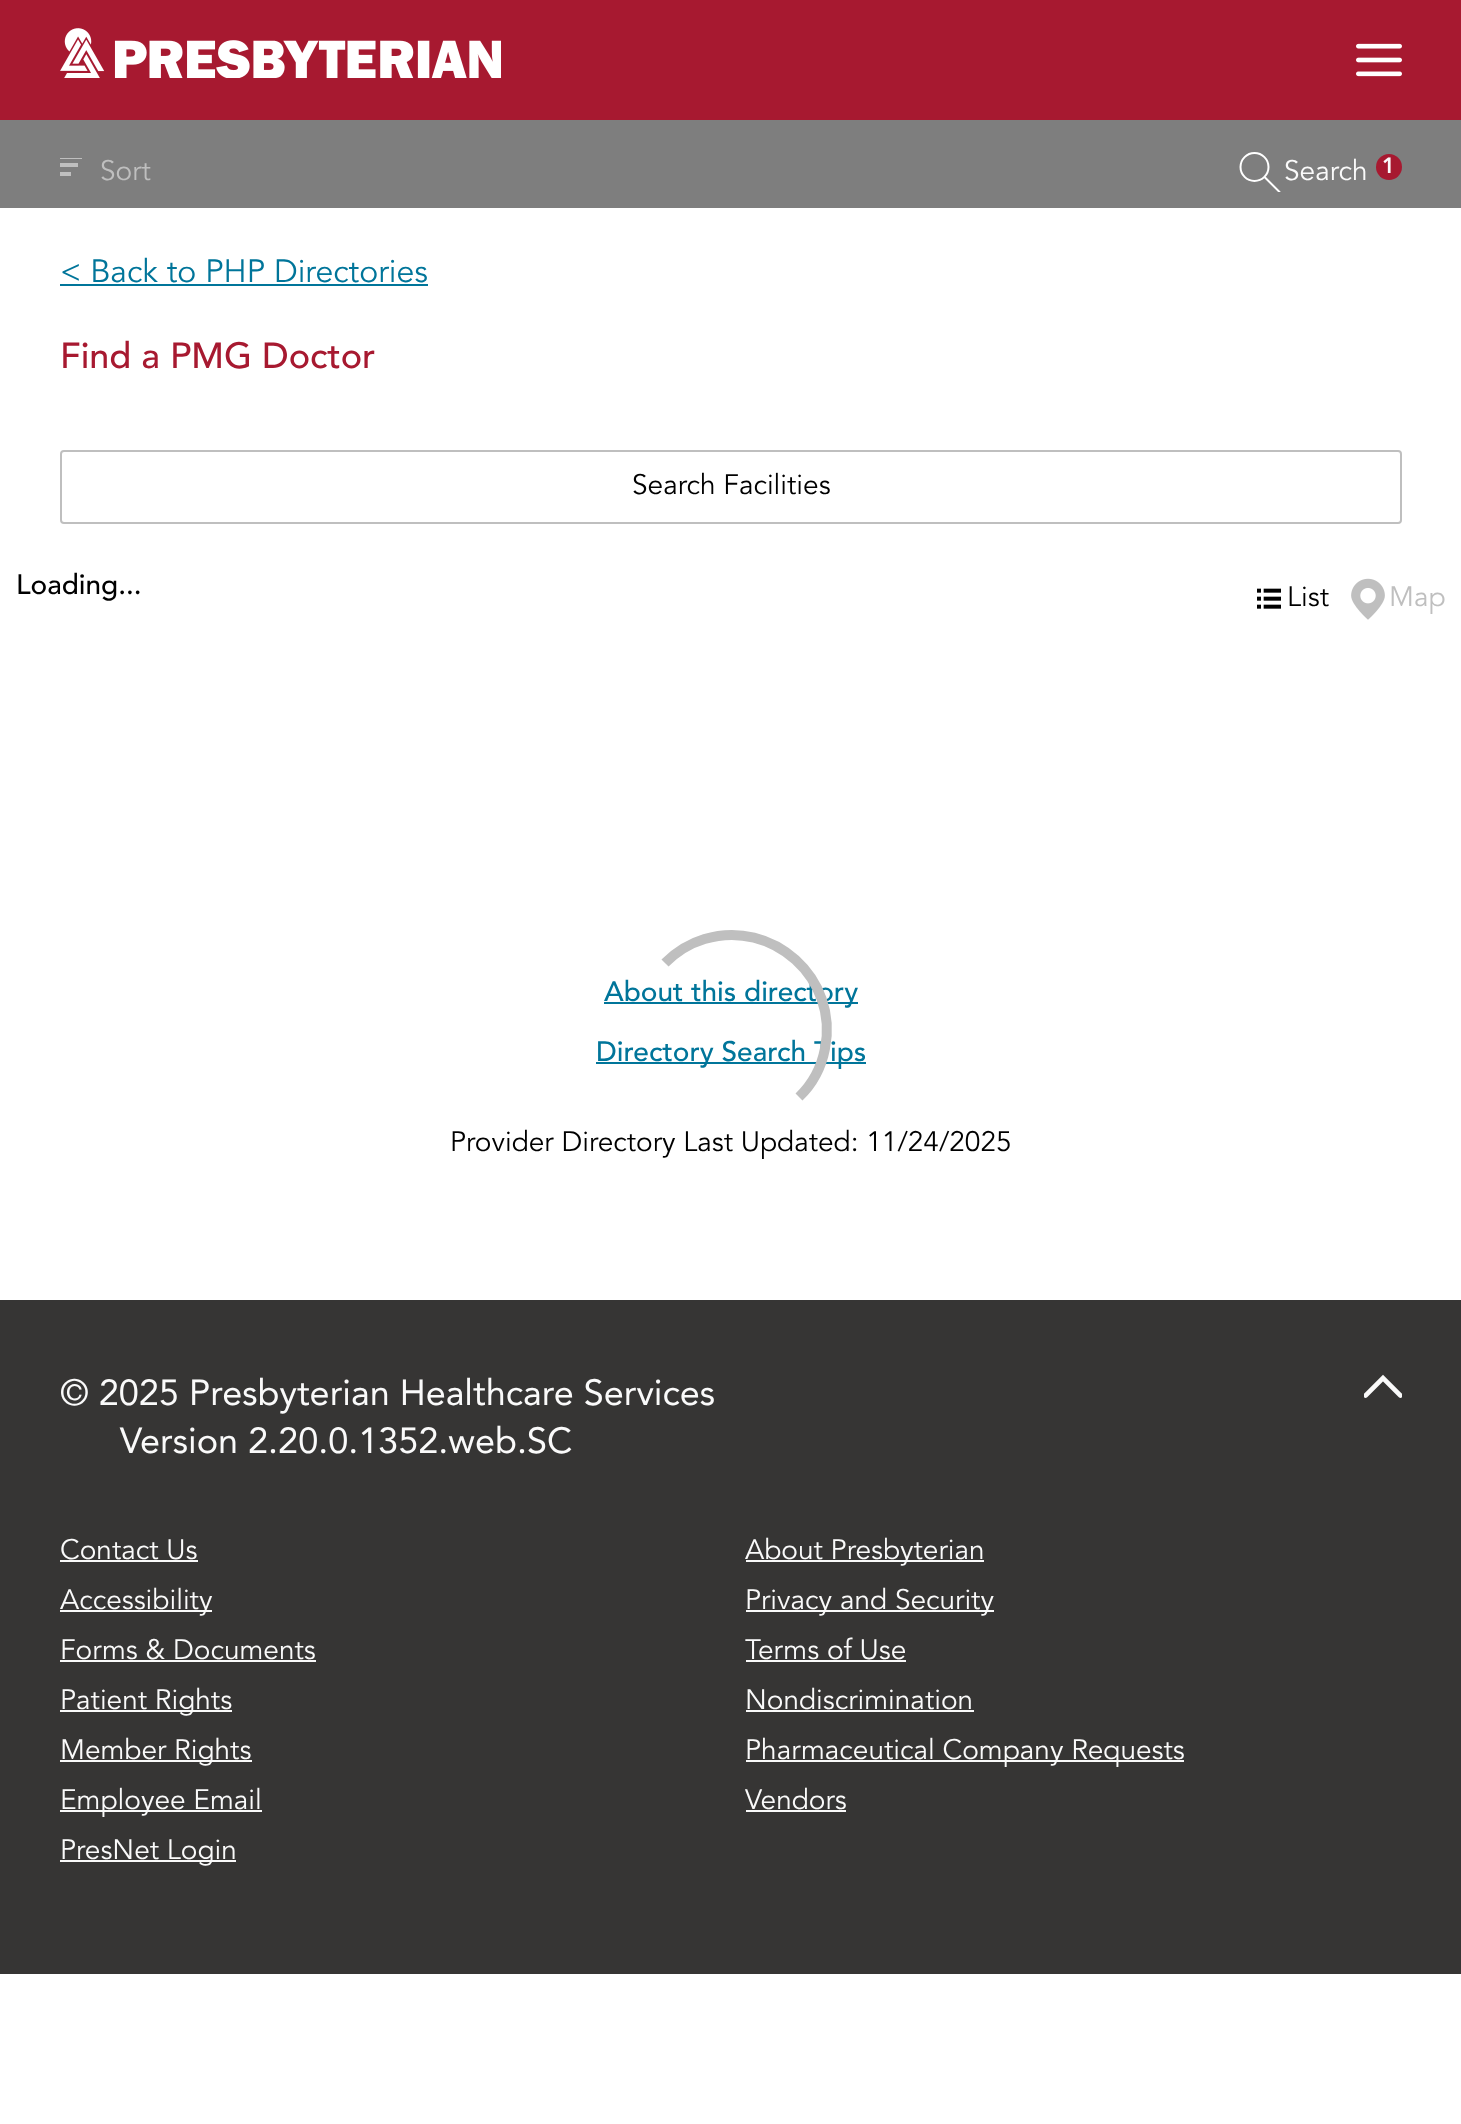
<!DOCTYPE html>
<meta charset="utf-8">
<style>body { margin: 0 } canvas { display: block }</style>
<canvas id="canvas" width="1461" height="2124"></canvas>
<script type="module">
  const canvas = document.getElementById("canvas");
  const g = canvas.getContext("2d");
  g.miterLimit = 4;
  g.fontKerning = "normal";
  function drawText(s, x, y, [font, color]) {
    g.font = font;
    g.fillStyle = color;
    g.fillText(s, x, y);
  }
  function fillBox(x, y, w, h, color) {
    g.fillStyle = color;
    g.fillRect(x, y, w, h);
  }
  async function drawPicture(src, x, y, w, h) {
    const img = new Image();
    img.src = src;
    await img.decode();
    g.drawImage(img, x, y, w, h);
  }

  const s1 = ["28px Avenir", "#BFBFBF"];
  const s2 = ["28px Avenir", "#FAFAFA"];
  const s3 = ["900 22px Avenir", "#FAFAFA"];
  const s4 = ["500 28px Avenir", "#000000"];
  const s5 = ["28px Avenir", "#000000"];
  const s6 = ["500 28px Avenir", "#00759A"];
  const s7 = ["32px Avenir", "#00759A"];
  const s8 = ["500 36px Avenir", "#A71930"];
  const s9 = ["36px 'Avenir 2'", "#FAFAFA"];

  fillBox(0, 0, 1461, 2124, "#FFFFFF");
  fillBox(0, 0, 1461, 120, "#A71930");
  await drawPicture("pic1.png", 60, 28, 441, 50);
  await drawPicture("pic2.png", 1356, 43, 46, 34);
  fillBox(0, 120, 1461, 88, "#7E7E7E");
  fillBox(60, 158, 22, 1, "#BFBFBF");
  fillBox(60, 172, 11, 4, "#BFBFBF");
  fillBox(60, 163, 18, 4, "#BFBFBF");
  drawText("Sort", 100, 180, s1);
  g.beginPath();
  g.arc(1254.5, 167, 14, 0, Math.PI * 2);
  g.strokeStyle = "#FFFFFF";
  g.lineWidth = 2;
  g.stroke();
  g.save();
  g.beginPath();
  g.rect(1236, 152, 48, 40);
  g.clip();
  g.beginPath();
  g.moveTo(1265, 177.5);
  g.lineTo(1279.5, 192);
  g.lineCap = "round";
  g.stroke();
  g.restore();
  drawText("Search", 1284, 180, s2);
  g.fillStyle = "#A71930";
  g.beginPath();
  g.arc(1389, 167, 13, 0, Math.PI * 2);
  g.fill();
  drawText("1", 1382, 173, s3);
  drawText("Loading...", 16, 594, s4);
  await drawPicture("pic3.png", 1257, 588, 24, 21);
  drawText("List", 1287, 606, s5);
  await drawPicture("pic4.png", 1351, 578, 34, 42);
  drawText("Map", 1389, 606, s1);
  fillBox(604, 1002, 254, 2, "#00759A");
  drawText("About this directory", 604, 1001, s6);
  fillBox(596, 1062, 270, 2, "#00759A");
  drawText("Directory Search Tips", 596, 1061, s6);
  g.beginPath();
  g.moveTo(665, 963);
  g.bezierCurveTo(676, 952, 689.5, 943.5, 704.5, 939);
  g.bezierCurveTo(772.5, 918.5, 839, 978.5, 825, 1048.5);
  g.bezierCurveTo(821.5, 1067, 812.5, 1084, 799, 1097);
  g.strokeStyle = "#BFBFBF";
  g.lineWidth = 10;
  g.stroke();
  drawText("< Back to PHP Directories", 60, 282, s7);
  fillBox(60, 284, 368, 2, "#00759A");
  drawText("Find a PMG Doctor", 60, 368, s8);
  g.beginPath();
  g.roundRect(61, 451, 1340, 72, 3);
  g.lineWidth = 2;
  g.stroke();
  drawText("Search Facilities", 632, 494, s5);
  drawText("Provider Directory Last Updated: 11/24/2025", 450, 1151, s5);
  fillBox(0, 1300, 1461, 674, "#363534");
  drawText("© 2025 Presbyterian Healthcare Services", 60, 1405, s9);
  drawText("Version 2.20.0.1352.web.SC", 120, 1453, s9);
  g.save();
  g.beginPath();
  g.rect(1364, 1371, 38, 31);
  g.clip();
  g.beginPath();
  g.moveTo(1400.5, 1395.5);
  g.lineTo(1383, 1378);
  g.lineTo(1365.5, 1395.5);
  g.strokeStyle = "#FAFAFA";
  g.lineWidth = 4.7;
  g.lineCap = "round";
  g.stroke();
  g.restore();
  drawText("Contact Us", 60, 1559, s2);
  fillBox(60, 1560, 138, 2, "#FAFAFA");
  fillBox(746, 1560, 238, 2, "#FAFAFA");
  drawText("About Presbyterian", 745, 1559, s2);
  fillBox(60, 1610, 152, 2, "#FAFAFA");
  drawText("Accessibility", 60, 1609, s2);
  fillBox(746, 1610, 248, 2, "#FAFAFA");
  drawText("Privacy and Security", 745, 1609, s2);
  drawText("Forms & Documents", 60, 1659, s2);
  fillBox(60, 1660, 256, 2, "#FAFAFA");
  drawText("Terms of Use", 745, 1659, s2);
  fillBox(746, 1660, 160, 2, "#FAFAFA");
  fillBox(60, 1710, 172, 2, "#FAFAFA");
  drawText("Patient Rights", 60, 1709, s2);
  drawText("Nondiscrimination", 745, 1709, s2);
  fillBox(746, 1710, 228, 2, "#FAFAFA");
  fillBox(60, 1760, 192, 2, "#FAFAFA");
  drawText("Member Rights", 60, 1759, s2);
  fillBox(746, 1760, 438, 2, "#FAFAFA");
  drawText("Pharmaceutical Company Requests", 745, 1759, s2);
  fillBox(60, 1810, 202, 2, "#FAFAFA");
  drawText("Employee Email", 60, 1809, s2);
  drawText("Vendors", 745, 1809, s2);
  fillBox(746, 1810, 100, 2, "#FAFAFA");
  fillBox(60, 1860, 176, 2, "#FAFAFA");
  drawText("PresNet Login", 60, 1859, s2);
</script>
